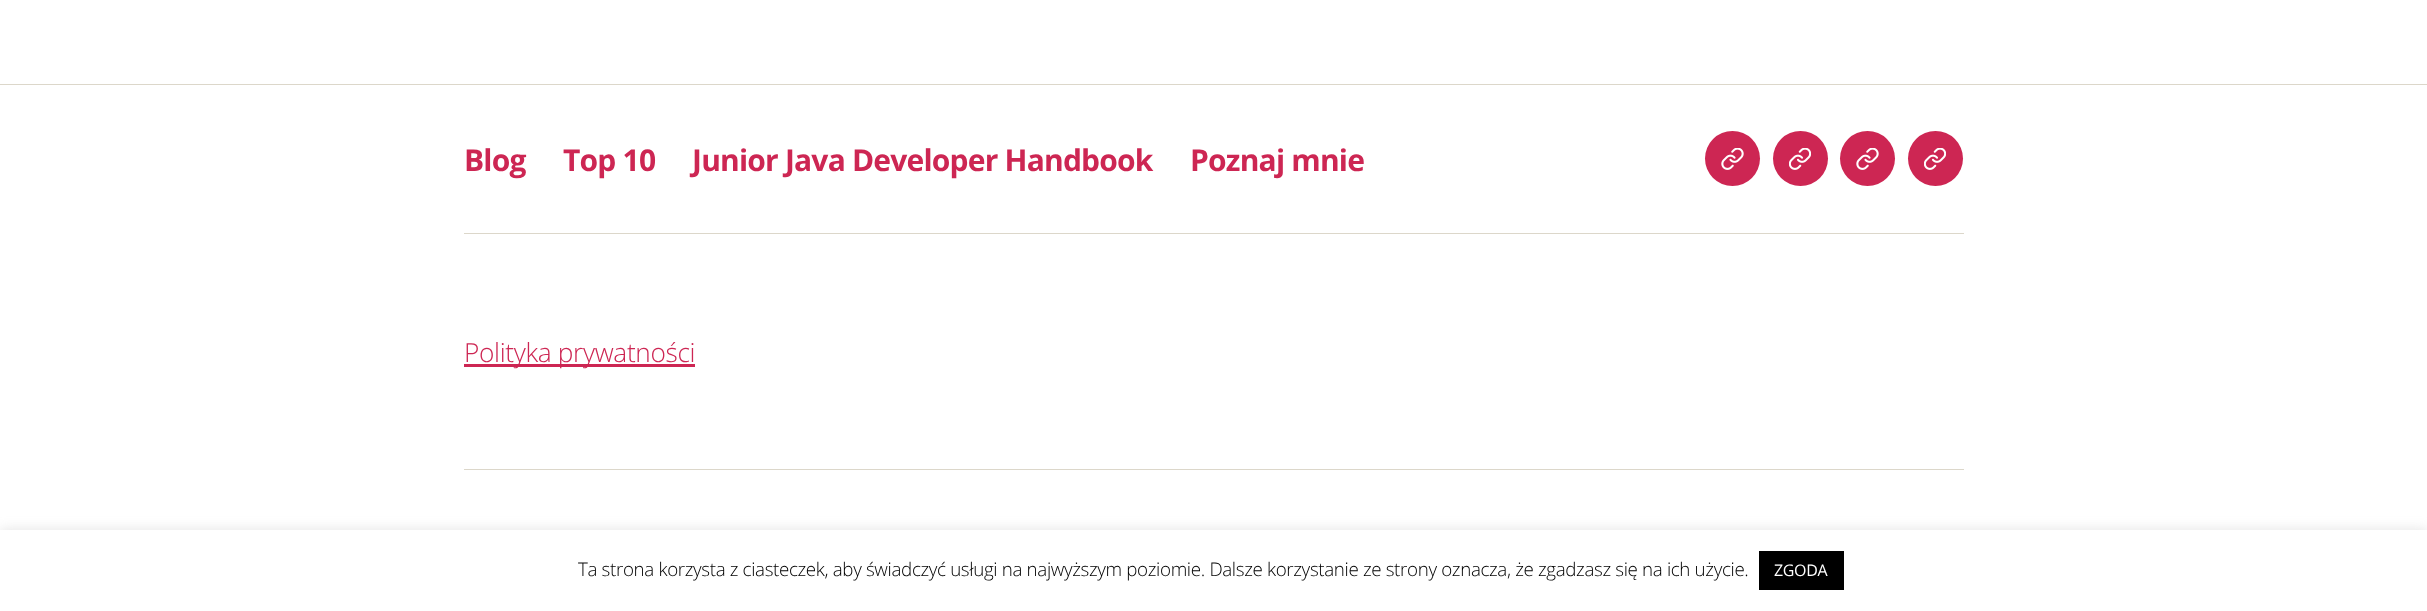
<!DOCTYPE html>
<meta charset="utf-8">
<style>body { margin: 0 } canvas { display: block }</style>
<canvas id="canvas" width="2427" height="611"></canvas>
<script type="module">
  const canvas = document.getElementById("canvas");
  const g = canvas.getContext("2d");
  g.miterLimit = 4;
  g.fontKerning = "normal";
  function drawText(s, x, y, [font, color]) {
    g.font = font;
    g.fillStyle = color;
    g.fillText(s, x, y);
  }
  function fillBox(x, y, w, h, color) {
    g.fillStyle = color;
    g.fillRect(x, y, w, h);
  }
  async function drawPicture(src, x, y, w, h) {
    const img = new Image();
    img.src = src;
    await img.decode();
    g.drawImage(img, x, y, w, h);
  }

  const s1 = ["bold 30px Open Sans", "#CD2653"];
  const s2 = ["300 26.25px Open Sans", "#CD2653"];
  const s3 = ["300 18.75px Open Sans", "#000000"];
  const s4 = ["16px Open Sans", "#FFFFFF"];

  fillBox(0, 0, 2427, 611, "#FFFFFF");
  fillBox(0, 84, 2427, 1, "#DCD7CA");
  fillBox(464, 233, 1500, 1, "#DCD7CA");
  g.letterSpacing = "-0.8px";
  drawText("Blog", 464, 171, s1);
  drawText("Top 10", 563, 171, s1);
  drawText("Junior Java Developer Handbook", 692, 171, s1);
  drawText("Poznaj mnie", 1190, 171, s1);
  g.beginPath();
  g.arc(1732.5, 158.5, 27.5, 0, Math.PI * 2);
  g.fill();
  await drawPicture("pic1.png", 1721, 148, 23, 22);
  g.beginPath();
  g.arc(1800.5, 158.5, 27.5, 0, Math.PI * 2);
  g.fill();
  await drawPicture("pic2.png", 1789, 148, 22, 22);
  g.beginPath();
  g.arc(1867.5, 158.5, 27.5, 0, Math.PI * 2);
  g.fill();
  await drawPicture("pic1.png", 1856, 148, 23, 22);
  g.beginPath();
  g.arc(1935.5, 158.5, 27.5, 0, Math.PI * 2);
  g.fill();
  await drawPicture("pic2.png", 1924, 148, 22, 22);
  fillBox(464, 469, 1500, 1, "#DCD7CA");
  fillBox(464, 364, 231, 3, "#CD2653");
  g.letterSpacing = "-0.34px";
  drawText("Polityka prywatności", 464, 362, s2);
  g.fillStyle = "rgba(172, 171, 171, 0.3)";
  g.filter = "blur(6px)";
  g.beginPath();
  g.rect(0, 529, 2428, 81);
  g.fill();
  g.filter = "none";
  fillBox(0, 530, 2427, 81, "#FFFFFF");
  drawText("Ta strona korzysta z ciasteczek, aby świadczyć usługi na najwyższym poziomie. Dalsze korzystanie ze strony oznacza, że zgadzasz się na ich użycie.", 578, 576, s3);
  fillBox(1759, 551, 85, 39, "#000000");
  drawText("ZGODA", 1774, 576, s4);
</script>
